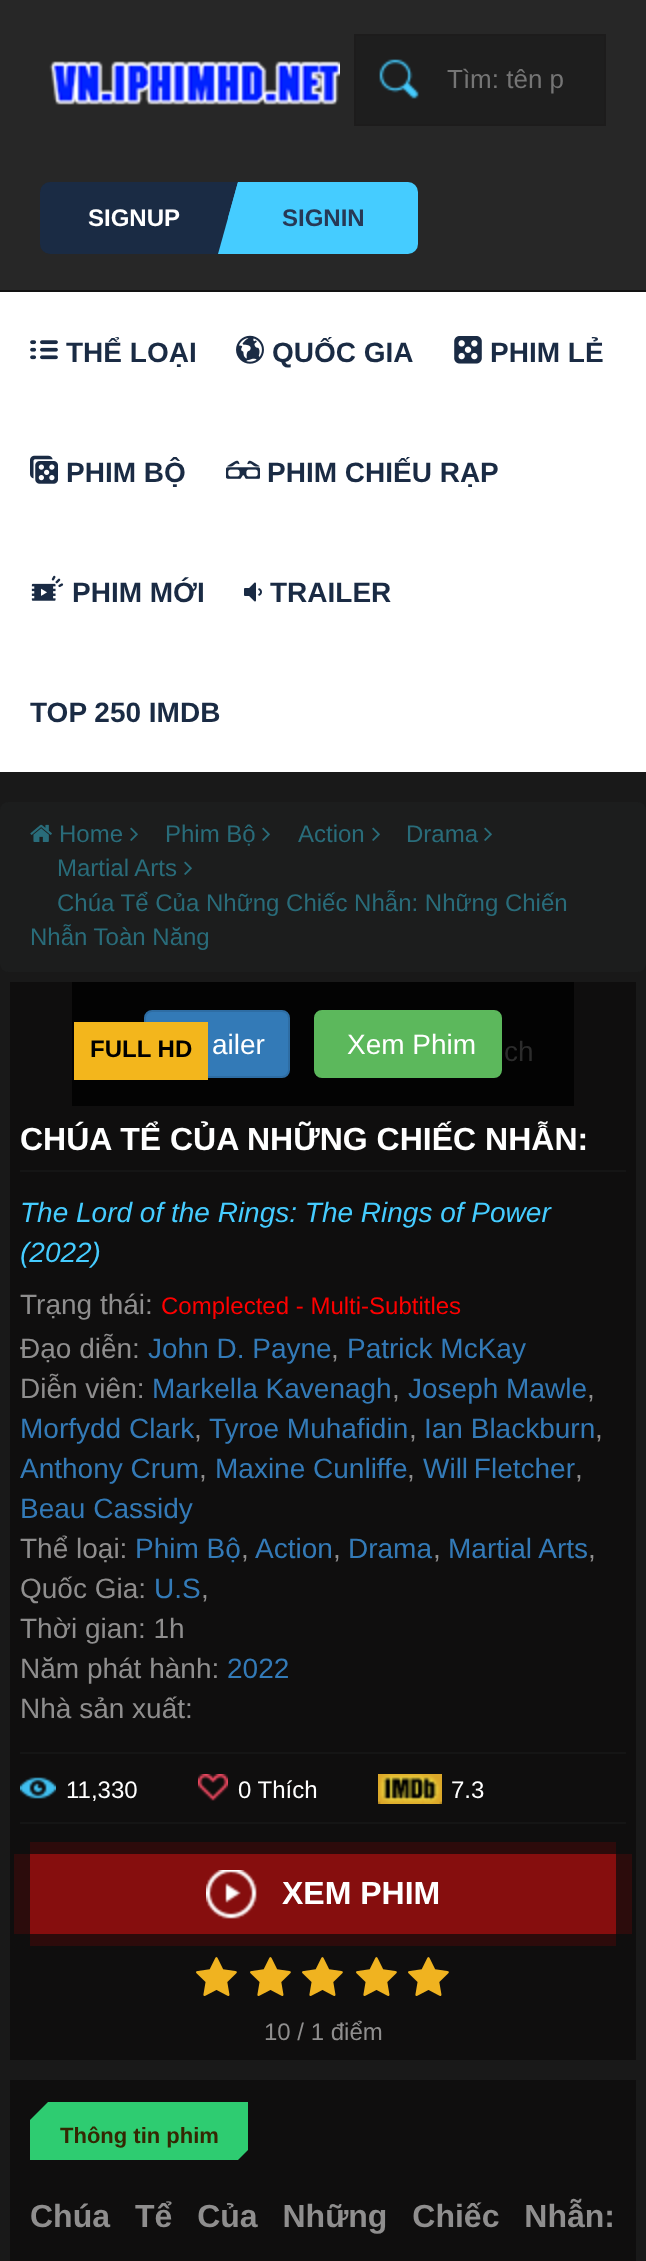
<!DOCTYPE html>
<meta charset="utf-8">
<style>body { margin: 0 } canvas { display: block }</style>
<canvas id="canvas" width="646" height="2261"></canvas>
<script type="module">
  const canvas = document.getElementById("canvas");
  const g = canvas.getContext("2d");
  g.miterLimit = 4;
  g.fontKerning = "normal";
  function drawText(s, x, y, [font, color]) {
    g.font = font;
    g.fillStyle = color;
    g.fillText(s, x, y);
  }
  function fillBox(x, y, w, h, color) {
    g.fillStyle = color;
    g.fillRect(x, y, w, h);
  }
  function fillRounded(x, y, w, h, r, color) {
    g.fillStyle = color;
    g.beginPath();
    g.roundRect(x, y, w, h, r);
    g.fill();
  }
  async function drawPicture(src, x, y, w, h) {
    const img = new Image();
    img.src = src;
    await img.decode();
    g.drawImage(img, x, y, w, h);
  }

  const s1 = ["26px Liberation Sans", "#757575"];
  const s2 = ["bold 24px Liberation Sans", "#FFFFFF"];
  const s3 = ["bold 24px Liberation Sans", "#273855"];
  const s4 = ["bold 28px Liberation Sans", "#1A2B44"];
  const s5 = ["24px Liberation Sans", "#296C7A"];
  const s6 = ["bold 24px Liberation Sans", "#000000"];
  const s7 = ["28px Liberation Sans", "#FFFFFF"];
  const s8 = ["28px Liberation Sans", "#2C2C2C"];
  const s9 = ["bold 32px Liberation Sans", "#FFFFFF"];
  const s10 = ["italic 28px Liberation Sans", "#45CCFF"];
  const s11 = ["28px Liberation Sans", "#8F8E8E"];
  const s12 = ["24px Liberation Sans", "#FF0000"];
  const s13 = ["28px Liberation Sans", "#337AB7"];
  const s14 = ["24px Liberation Sans", "#FFFFFF"];
  const s15 = ["24px Liberation Sans", "#8F8E8E"];
  const s16 = ["bold 22px Liberation Sans", "#352702"];
  const s17 = ["bold 32px Liberation Sans", "#8F8E8E"];

  fillBox(0, 0, 646, 2261, "#191919");
  fillBox(0, 0, 646, 290, "#272727");
  fillBox(0, 290, 646, 2, "#121212");
  await drawPicture("pic1.png", 49, 61, 291, 44);
  g.fillStyle = "#1E1E1E";
  g.beginPath();
  g.rect(355, 35, 250, 90);
  g.fill();
  g.strokeStyle = "#1D1C1C";
  g.lineWidth = 2;
  g.stroke();
  await drawPicture("pic2.png", 379, 59, 40, 40);
  drawText("Tìm: tên p", 447, 88, s1);
  fillRounded(40, 182, 188, 72, 10, "#1A2B44");
  drawText("SIGNUP", 88, 226, s2);
  fillRounded(228, 182, 190, 72, 10, "#45CCFF");
  g.fillStyle = "#1A2B44";
  g.beginPath();
  g.moveTo(218, 182);
  g.lineTo(238, 182);
  g.lineTo(218, 254);
  g.closePath();
  g.fill();
  g.fillStyle = "#45CCFF";
  g.beginPath();
  g.moveTo(238, 254);
  g.lineTo(218, 254);
  g.lineTo(238, 182);
  g.closePath();
  g.fill();
  drawText("SIGNIN", 282, 226, s3);
  fillBox(0, 292, 646, 480, "#FFFFFF");
  await drawPicture("pic3.png", 30, 340, 28, 20);
  drawText("THỂ LOẠI", 66, 362, s4);
  await drawPicture("pic4.png", 236, 335, 28, 29);
  drawText("QUỐC GIA", 272, 362, s4);
  await drawPicture("pic5.png", 454, 336, 28, 28);
  drawText("PHIM LẺ", 490, 362, s4);
  await drawPicture("pic6.png", 30, 455, 28, 29);
  drawText("PHIM BỘ", 66, 482, s4);
  await drawPicture("pic7.png", 226, 460, 34, 19);
  drawText("PHIM CHIẾU RẠP", 267, 482, s4);
  await drawPicture("pic8.png", 31, 575, 33, 26);
  drawText("PHIM MỚI", 72, 602, s4);
  await drawPicture("pic9.png", 244, 582, 18, 20);
  drawText("TRAILER", 270, 602, s4);
  drawText("TOP 250 IMDB", 30, 722, s4);
  fillRounded(0, 802, 646, 170, 8, "#1C1D1D");
  await drawPicture("pic10.png", 30, 824, 22, 18);
  drawText("Home", 59, 842, s5);
  await drawPicture("pic11.png", 130, 827, 8, 14);
  drawText("Phim Bộ", 165, 842, s5);
  await drawPicture("pic11.png", 262, 827, 8, 14);
  drawText("Action", 298, 842, s5);
  await drawPicture("pic11.png", 372, 827, 8, 14);
  drawText("Drama", 406, 842, s5);
  await drawPicture("pic11.png", 484, 827, 8, 14);
  drawText("Martial Arts", 57, 876, s5);
  await drawPicture("pic11.png", 184, 861, 8, 14);
  drawText("Chúa Tể Của Những Chiếc Nhẫn: Những Chiến", 57, 911, s5);
  drawText("Nhẫn Toàn Năng", 30, 945, s5);
  fillBox(10, 982, 626, 1078, "#0F0E0E");
  fillBox(72, 982, 502, 124, "#030303");
  g.fillStyle = "#337AB7";
  g.beginPath();
  g.roundRect(145, 1011, 144, 66, 7);
  g.fill();
  g.strokeStyle = "#2E6DA4";
  g.stroke();
  fillBox(74, 1022, 134, 58, "#F3B61C");
  drawText("FULL HD", 90, 1057, s6);
  drawText("ailer", 212, 1054, s7);
  g.fillStyle = "#5CB85C";
  g.beginPath();
  g.roundRect(315, 1011, 186, 66, 7);
  g.fill();
  g.strokeStyle = "#5CB85C";
  g.stroke();
  drawText("Xem Phim", 347, 1054, s7);
  drawText("ch", 504, 1061, s8);
  fillBox(20, 1170, 606, 2, "#151515");
  drawText("CHÚA TỂ CỦA NHỮNG CHIẾC NHẪN:", 20, 1150, s9);
  drawText("The Lord of the Rings: The Rings of Power", 20, 1222, s10);
  drawText("(2022)", 20, 1262, s10);
  drawText("Trạng thái:", 20, 1314, s11);
  drawText("Complected - Multi-Subtitles", 161, 1314, s12);
  drawText("Đạo diễn:", 20, 1358, s11);
  drawText("John D. Payne", 148, 1358, s13);
  drawText(",", 331, 1358, s11);
  drawText("Patrick McKay", 347, 1358, s13);
  drawText("Diễn viên:", 20, 1398, s11);
  drawText("Markella Kavenagh", 152, 1398, s13);
  drawText(",", 392, 1398, s11);
  drawText("Joseph Mawle", 408, 1398, s13);
  drawText(",", 587, 1398, s11);
  drawText("Morfydd Clark", 20, 1438, s13);
  drawText(",", 194, 1438, s11);
  drawText("Tyroe Muhafidin", 209, 1438, s13);
  drawText(",", 409, 1438, s11);
  drawText("Ian Blackburn", 424, 1438, s13);
  drawText(",", 595, 1438, s11);
  drawText("Anthony Crum", 20, 1478, s13);
  drawText(",", 199, 1478, s11);
  drawText("Maxine Cunliffe", 215, 1478, s13);
  drawText(",", 407, 1478, s11);
  g.wordSpacing = "-2px";
  drawText("Will Fletcher", 423, 1478, s13);
  g.wordSpacing = "0px";
  drawText(",", 575, 1478, s11);
  drawText("Beau Cassidy", 20, 1518, s13);
  drawText("Thể loại:", 20, 1558, s11);
  drawText("Phim Bộ", 135, 1558, s13);
  drawText(",", 241, 1558, s11);
  drawText("Action", 255, 1558, s13);
  drawText(",", 333, 1558, s11);
  drawText("Drama", 348, 1558, s13);
  drawText(",", 433, 1558, s11);
  drawText("Martial Arts", 448, 1558, s13);
  drawText(",", 588, 1558, s11);
  drawText("Quốc Gia:", 20, 1598, s11);
  drawText("U.S", 154, 1598, s13);
  drawText(",", 201, 1598, s11);
  drawText("Thời gian: 1h", 20, 1638, s11);
  drawText("Năm phát hành:", 20, 1678, s11);
  drawText("2022", 227, 1678, s13);
  drawText("Nhà sản xuất:", 20, 1718, s11);
  fillBox(20, 1752, 606, 2, "#151515");
  fillBox(20, 1822, 606, 2, "#151515");
  await drawPicture("pic12.png", 20, 1777, 36, 22);
  drawText("11,330", 66, 1798, s14);
  await drawPicture("pic13.png", 198, 1774, 30, 27);
  drawText("0 Thích", 238, 1798, s14);
  await drawPicture("pic14.png", 378, 1774, 64, 30);
  drawText("7.3", 451, 1798, s14);
  fillBox(14, 1854, 16, 80, "#2C0C0C");
  fillBox(30, 1854, 586, 80, "#860E0E");
  fillBox(30, 1842, 586, 12, "#2D0B0B");
  await drawPicture("pic15.png", 206, 1870, 51, 49);
  drawText("XEM PHIM", 282, 1904, s9);
  fillBox(30, 1934, 586, 12, "#2D0B0B");
  fillBox(616, 1854, 16, 80, "#2C0C0C");
  await drawPicture("pic16.png", 196, 1957, 41, 39);
  await drawPicture("pic16.png", 250, 1957, 41, 39);
  await drawPicture("pic16.png", 302, 1957, 41, 39);
  await drawPicture("pic16.png", 356, 1957, 41, 39);
  await drawPicture("pic16.png", 408, 1957, 41, 39);
  drawText("10 / 1 điểm", 264, 2040, s15);
  fillBox(10, 2080, 626, 181, "#0F0E0E");
  fillBox(30, 2122, 218, 26, "#2ECC71");
  g.save();
  g.beginPath();
  g.rect(30, 2100, 218, 60);
  g.clip();
  g.beginPath();
  g.moveTo(266, 2122);
  g.lineTo(28, 2122);
  g.lineTo(48, 2102);
  g.lineTo(266, 2102);
  g.closePath();
  g.fill();
  g.restore();
  drawText("Thông tin phim", 60, 2143, s16);
  g.save();
  g.beginPath();
  g.rect(30, 2100, 218, 60);
  g.clip();
  g.fillStyle = "#2ECC71";
  g.beginPath();
  g.moveTo(12, 2148);
  g.lineTo(250, 2148);
  g.lineTo(230, 2168);
  g.lineTo(12, 2168);
  g.closePath();
  g.fill();
  g.restore();
  g.wordSpacing = "16px";
  drawText("Chúa Tể Của Những Chiếc Nhẫn:", 30, 2227, s17);
</script>
